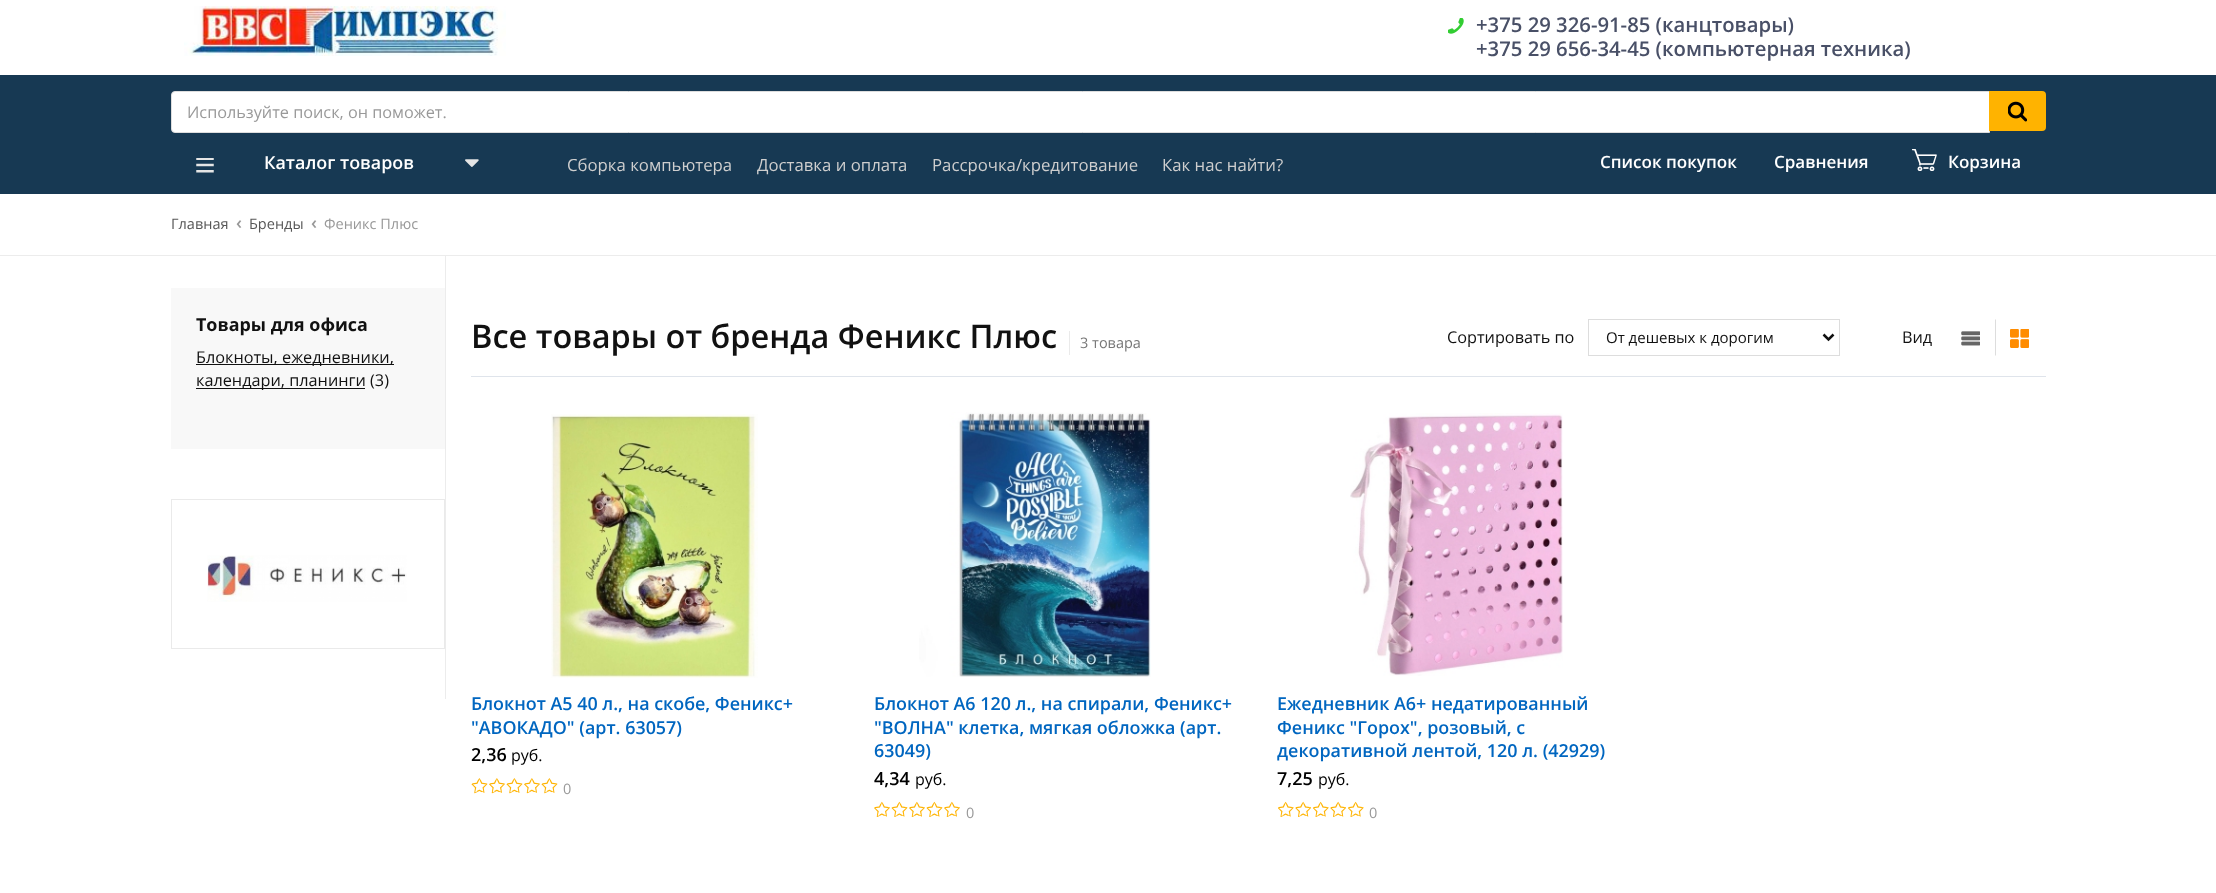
<!DOCTYPE html>
<meta charset="utf-8">
<style>body { margin: 0 } canvas { display: block }</style>
<canvas id="canvas" width="2216" height="893"></canvas>
<script type="module">
  const canvas = document.getElementById("canvas");
  const g = canvas.getContext("2d");
  g.miterLimit = 4;
  g.fontKerning = "normal";
  function drawText(s, x, y, [font, color]) {
    g.font = font;
    g.fillStyle = color;
    g.fillText(s, x, y);
  }
  function fillBox(x, y, w, h, color) {
    g.fillStyle = color;
    g.fillRect(x, y, w, h);
  }
  async function drawPicture(src, x, y, w, h) {
    const img = new Image();
    img.src = src;
    await img.decode();
    g.drawImage(img, x, y, w, h);
  }

  const s1 = ["600 20.3px Open Sans", "#495067"];
  const s2 = ["16.25px Open Sans", "#999999"];
  const s3 = ["600 17.9px Open Sans", "#FFFFFF"];
  const s4 = ["16.75px Open Sans", "#CECECE"];
  const s5 = ["600 17px Open Sans", "#FFFFFF"];
  const s6 = ["14.5px Open Sans", "#575757"];
  const s7 = ["600 17.9px Open Sans", "#999999"];
  const s8 = ["14.5px Open Sans", "#999999"];
  const s9 = ["bold 17.9px Open Sans", "#111111"];
  const s10 = ["16.25px Open Sans", "#111111"];
  const s11 = ["600 32.5px Open Sans", "#111111"];
  const s12 = ["14.5px Open Sans", "#777777"];
  const s13 = ["15px Open Sans", "#111111"];
  const s14 = ["600 17.9px Open Sans", "#0066C0"];
  const s15 = ["600 18px Open Sans", "#000000"];
  const s16 = ["16px Open Sans", "#000000"];

  fillBox(0, 0, 2216, 893, "#FFFFFF");
  await drawPicture("pic1.png", 184, 6, 322, 50);
  await drawPicture("pic2.png", 1448, 18, 16, 16);
  drawText("+375 29 326-91-85 (канцтовары)", 1476, 32, s1);
  drawText("+375 29 656-34-45 (компьютерная техника)", 1476, 56, s1);
  fillBox(0, 75, 2216, 119, "#173953");
  g.fillStyle = "#FFFFFF";
  g.beginPath();
  g.roundRect(171.5, 91.5, 1818, 41, [3.5, 0, 0, 3.5]);
  g.fill();
  g.strokeStyle = "#DDDDDD";
  g.stroke();
  drawText("Используйте поиск, он поможет.", 187, 118, s2);
  g.fillStyle = "#FFB300";
  g.beginPath();
  g.roundRect(1989, 91, 57, 40, [0, 4, 4, 0]);
  g.fill();
  await drawPicture("pic3.png", 2008, 101, 19, 21);
  await drawPicture("pic4.png", 196, 158, 18, 15);
  drawText("Каталог товаров", 264, 169, s3);
  await drawPicture("pic5.png", 465, 159, 14, 8);
  drawText("Сборка компьютера", 567, 171, s4);
  drawText("Доставка и оплата", 757, 171, s4);
  drawText("Рассрочка/кредитование", 932, 171, s4);
  drawText("Как нас найти?", 1162, 171, s4);
  drawText("Список покупок", 1600, 168, s5);
  drawText("Сравнения", 1774, 168, s5);
  await drawPicture("pic6.png", 1912, 149, 25, 22);
  drawText("Корзина", 1948, 168, s5);
  fillBox(0, 255, 2216, 1, "#ECECEC");
  drawText("Главная", 171, 229, s6);
  drawText("‹", 236, 229, s7);
  drawText("Бренды", 249, 229, s6);
  drawText("‹", 311, 229, s7);
  drawText("Феникс Плюс", 324, 229, s8);
  fillBox(445, 256, 1, 443, "#ECECEC");
  fillBox(171, 288, 274, 161, "#F8F8F8");
  drawText("Товары для офиса", 196, 331, s9);
  fillBox(196, 364, 198, 1, "#111111");
  drawText("Блокноты, ежедневники,", 196, 363, s10);
  fillBox(196, 388, 169, 1, "#111111");
  drawText("календари, планинги (3)", 196, 386, s10);
  g.strokeStyle = "#EAEAEA";
  g.strokeRect(171.5, 499.5, 273, 149);
  await drawPicture("pic7.png", 207, 555, 200, 47);
  fillBox(471, 376, 1575, 1, "#DFE4EB");
  drawText("Все товары от бренда Феникс Плюс", 471, 348, s11);
  fillBox(1069, 331, 1, 24, "#EAEAEA");
  drawText("3 товара", 1080, 348, s12);
  drawText("Сортировать по", 1447, 343, s10);
  g.strokeStyle = "#DDDDDD";
  g.strokeRect(1588.5, 319.5, 251, 36);
  g.beginPath();
  g.moveTo(1823.5, 334.5);
  g.lineTo(1828.5, 339.5);
  g.lineTo(1833.5, 334.5);
  g.strokeStyle = "#111111";
  g.lineWidth = 2.5;
  g.stroke();
  drawText("От дешевых к дорогим", 1606, 343, s13);
  drawText("Вид", 1902, 343, s10);
  await drawPicture("pic8.png", 1961, 331, 19, 15);
  g.fillStyle = "#DDDDDD";
  g.beginPath();
  g.moveTo(1996, 320);
  g.lineTo(1996, 355);
  g.lineTo(1995, 356);
  g.lineTo(1995, 319);
  g.closePath();
  g.fill();
  await drawPicture("pic9.png", 2010, 329, 19, 19);
  await drawPicture("pic10.png", 551, 414, 207, 264);
  drawText("Блокнот A5 40 л., на скобе, Феникс+", 471, 710, s14);
  drawText("\"АВОКАДО\" (арт. 63057)", 471, 734, s14);
  drawText("2,36", 471, 761, s15);
  drawText("руб.", 511, 761, s16);
  await drawPicture("pic11.png", 471, 778, 17, 16);
  await drawPicture("pic12.png", 489, 778, 16, 16);
  await drawPicture("pic11.png", 506, 778, 17, 16);
  await drawPicture("pic12.png", 524, 778, 16, 16);
  await drawPicture("pic11.png", 541, 778, 17, 16);
  drawText("0", 563, 794, s8);
  await drawPicture("pic13.png", 919, 412, 232, 265);
  drawText("Блокнот A6 120 л., на спирали, Феникс+", 874, 710, s14);
  drawText("\"ВОЛНА\" клетка, мягкая обложка (арт.", 874, 734, s14);
  drawText("63049)", 874, 757, s14);
  drawText("4,34", 874, 785, s15);
  drawText("руб.", 915, 785, s16);
  await drawPicture("pic14.png", 874, 801, 16, 16);
  await drawPicture("pic15.png", 891, 801, 17, 16);
  await drawPicture("pic14.png", 909, 801, 16, 16);
  await drawPicture("pic15.png", 926, 801, 17, 16);
  await drawPicture("pic14.png", 944, 801, 16, 16);
  drawText("0", 966, 818, s8);
  await drawPicture("pic16.png", 1350, 413, 213, 263);
  drawText("Ежедневник A6+ недатированный", 1277, 710, s14);
  drawText("Феникс \"Горох\", розовый, с", 1277, 734, s14);
  drawText("декоративной лентой, 120 л. (42929)", 1277, 757, s14);
  drawText("7,25", 1277, 785, s15);
  drawText("руб.", 1318, 785, s16);
  await drawPicture("pic17.png", 1278, 801, 16, 16);
  await drawPicture("pic18.png", 1295, 801, 16, 16);
  await drawPicture("pic17.png", 1313, 801, 16, 16);
  await drawPicture("pic18.png", 1330, 801, 16, 16);
  await drawPicture("pic17.png", 1348, 801, 16, 16);
  drawText("0", 1369, 818, s8);
</script>
